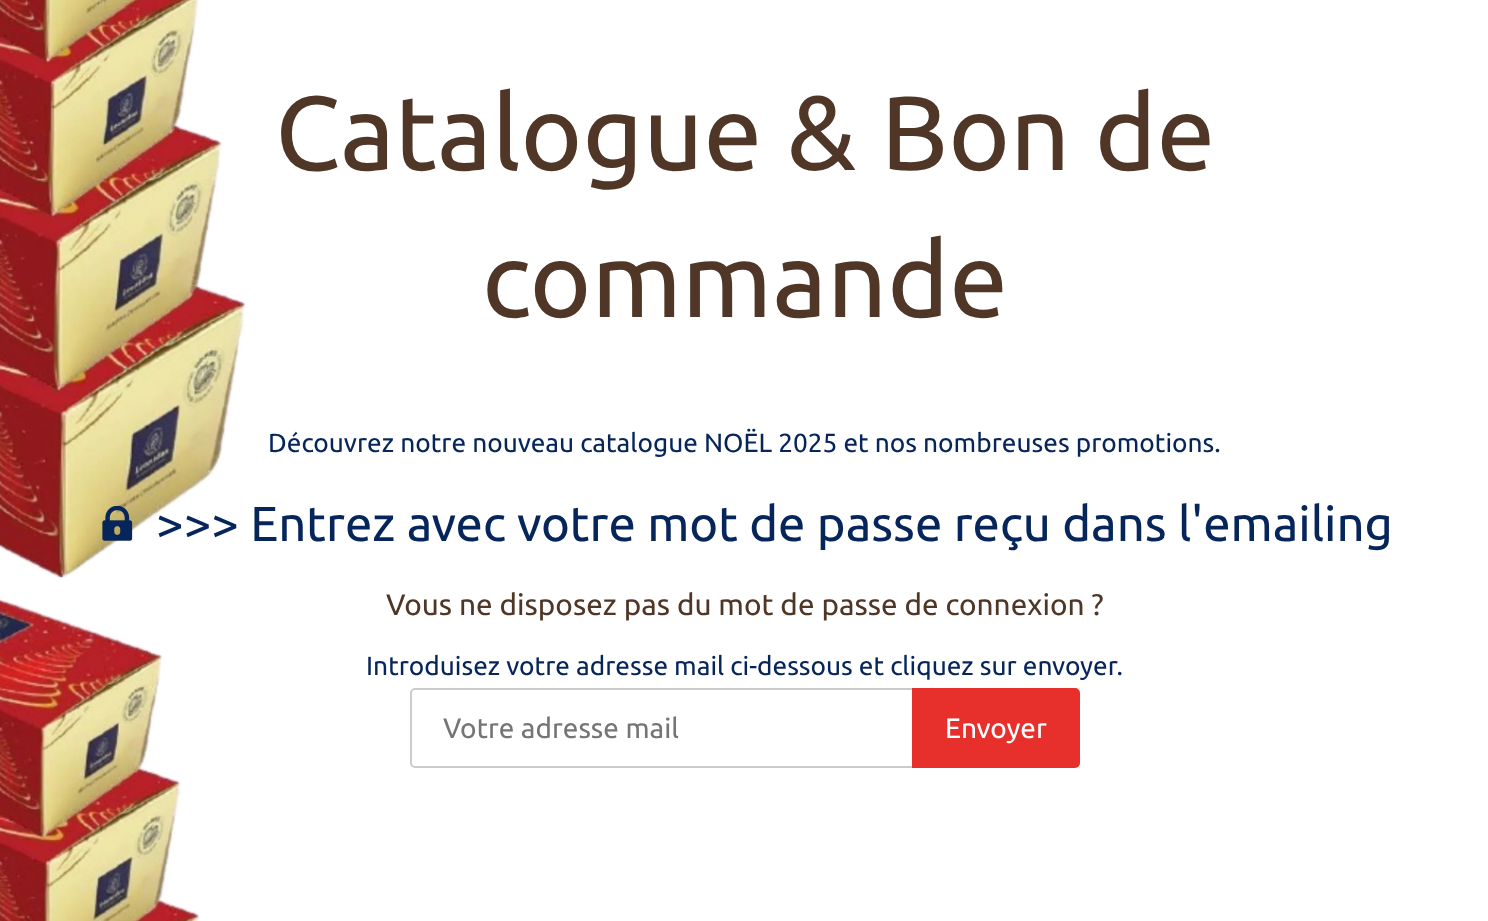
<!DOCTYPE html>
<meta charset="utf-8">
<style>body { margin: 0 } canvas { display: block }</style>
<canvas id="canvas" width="1488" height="921"></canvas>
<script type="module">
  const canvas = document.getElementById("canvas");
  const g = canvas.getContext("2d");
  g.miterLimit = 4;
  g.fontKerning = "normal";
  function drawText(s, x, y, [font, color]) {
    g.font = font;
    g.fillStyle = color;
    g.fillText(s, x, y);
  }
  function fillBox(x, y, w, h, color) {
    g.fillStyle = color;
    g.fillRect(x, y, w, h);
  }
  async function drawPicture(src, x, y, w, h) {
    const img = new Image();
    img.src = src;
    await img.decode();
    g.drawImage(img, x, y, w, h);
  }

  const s1 = ["105px Ubuntu", "#4F3626"];
  const s2 = ["26.25px Ubuntu", "#06255B"];
  const s3 = ["49px Ubuntu", "#06255B"];
  const s4 = ["29.75px Ubuntu", "#4F3626"];
  const s5 = ["28px Ubuntu", "#757575"];
  const s6 = ["28px Ubuntu", "#FFFFFF"];

  fillBox(0, 0, 1488, 921, "#FFFFFF");
  await drawPicture("pic1.png", 0, 0, 246, 921);
  drawText("Catalogue & Bon de", 275, 170, s1);
  drawText("commande", 482, 317, s1);
  drawText("Découvrez notre nouveau catalogue NOËL 2025 et nos nombreuses promotions.", 268, 452, s2);
  await drawPicture("pic2.png", 102, 506, 31, 35);
  drawText(">>> Entrez avec votre mot de passe reçu dans l'emailing", 156, 541, s3);
  drawText("Vous ne disposez pas du mot de passe de connexion ?", 386, 615, s4);
  drawText("Introduisez votre adresse mail ci-dessous et cliquez sur envoyer.", 366, 675, s2);
  g.beginPath();
  g.roundRect(411, 689, 502, 78, [4, 0, 0, 4]);
  g.strokeStyle = "#CCCCCC";
  g.lineWidth = 2;
  g.stroke();
  drawText("Votre adresse mail", 443, 738, s5);
  g.fillStyle = "#E7302B";
  g.beginPath();
  g.roundRect(913, 689, 166, 78, [0, 4, 4, 0]);
  g.fill();
  g.strokeStyle = "#E7302B";
  g.stroke();
  drawText("Envoyer", 945, 738, s6);
</script>
